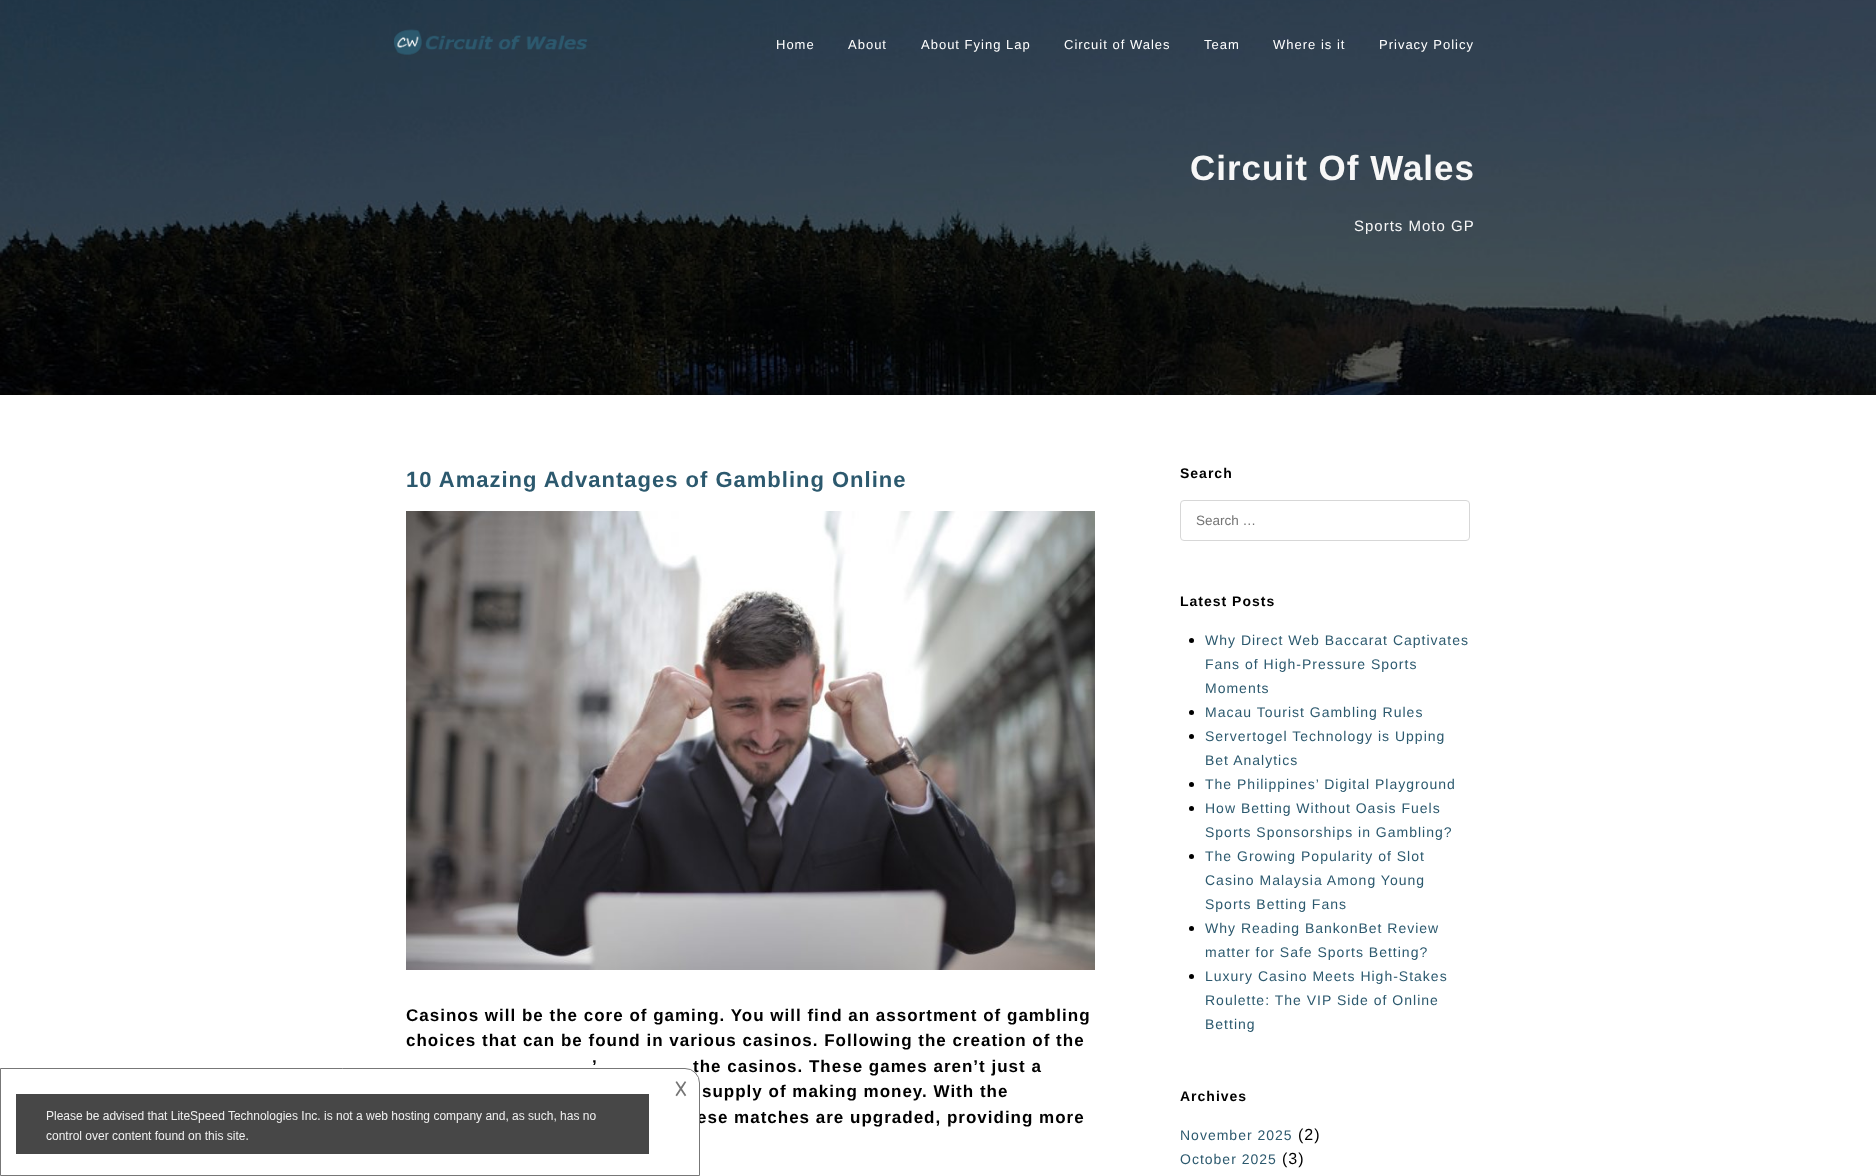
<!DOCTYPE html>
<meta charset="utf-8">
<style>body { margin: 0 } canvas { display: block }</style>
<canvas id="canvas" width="1876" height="1176"></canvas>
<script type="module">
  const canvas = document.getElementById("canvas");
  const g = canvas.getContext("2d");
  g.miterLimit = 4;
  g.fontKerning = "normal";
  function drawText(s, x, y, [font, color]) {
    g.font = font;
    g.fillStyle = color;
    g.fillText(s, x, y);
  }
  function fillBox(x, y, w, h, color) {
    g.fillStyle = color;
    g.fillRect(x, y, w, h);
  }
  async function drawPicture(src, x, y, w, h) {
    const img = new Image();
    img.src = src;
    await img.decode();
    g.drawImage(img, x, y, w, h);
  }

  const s1 = ["13px Liberation Sans", "#FFFFFF"];
  const s2 = ["bold 35px Liberation Sans", "#F7F7F7"];
  const s3 = ["15px Liberation Sans", "#F7F7F7"];
  const s4 = ["bold 22px Liberation Sans", "#2C596E"];
  const s5 = ["bold 17px Liberation Sans", "#000000"];
  const s6 = ["bold 14px Liberation Sans", "#000000"];
  const s7 = ["13.5px Liberation Sans", "#757575"];
  const s8 = ["14px Liberation Sans", "#2C596E"];
  const s9 = ["16px Liberation Sans", "#000000"];
  const s10 = ["20px DejaVu Sans", "#757575"];

  fillBox(0, 0, 1876, 1176, "#FFFFFF");
  await drawPicture("pic2.png", 0, 0, 1876, 395);
  await drawPicture("pic1.png", 393, 29, 195, 26);
  g.letterSpacing = "1px";
  drawText("Home", 776, 49, s1);
  drawText("About", 848, 49, s1);
  drawText("About Fying Lap", 921, 49, s1);
  drawText("Circuit of Wales", 1064, 49, s1);
  drawText("Team", 1204, 49, s1);
  drawText("Where is it", 1273, 49, s1);
  drawText("Privacy Policy", 1379, 49, s1);
  drawText("Circuit Of Wales", 1190, 180, s2);
  drawText("Sports Moto GP", 1354, 231, s3);
  drawText("10 Amazing Advantages of Gambling Online", 406, 487, s4);
  await drawPicture("pic3.png", 406, 511, 689, 459);
  drawText("Casinos will be the core of gaming. You will find an assortment of gambling", 406, 1021, s5);
  drawText("choices that can be found in various casinos. Following the creation of the", 406, 1046, s5);
  drawText("’", 592, 1072, s5);
  drawText("the casinos. These games aren’t just a", 693, 1072, s5);
  drawText("supply of making money. With the", 702, 1097, s5);
  drawText("ese matches are upgraded, providing more", 697, 1123, s5);
  drawText("Search", 1180, 478, s6);
  g.beginPath();
  g.roundRect(1180.5, 500.5, 289, 40, 3.5);
  g.strokeStyle = "#D7D7D7";
  g.stroke();
  g.letterSpacing = "0px";
  drawText("Search …", 1196, 525, s7);
  g.letterSpacing = "1px";
  drawText("Latest Posts", 1180, 606, s6);
  g.beginPath();
  g.arc(1191.5, 640.5, 2.5, 0, Math.PI * 2);
  g.fill();
  drawText("Why Direct Web Baccarat Captivates", 1205, 645, s8);
  drawText("Fans of High-Pressure Sports", 1205, 669, s8);
  drawText("Moments", 1205, 693, s8);
  g.fillStyle = "#000000";
  g.beginPath();
  g.arc(1191.5, 712.5, 2.5, 0, Math.PI * 2);
  g.fill();
  drawText("Macau Tourist Gambling Rules", 1205, 717, s8);
  g.fillStyle = "#000000";
  g.beginPath();
  g.arc(1191.5, 736.5, 2.5, 0, Math.PI * 2);
  g.fill();
  drawText("Servertogel Technology is Upping", 1205, 741, s8);
  drawText("Bet Analytics", 1205, 765, s8);
  g.fillStyle = "#000000";
  g.beginPath();
  g.arc(1191.5, 784.5, 2.5, 0, Math.PI * 2);
  g.fill();
  drawText("The Philippines’ Digital Playground", 1205, 789, s8);
  g.fillStyle = "#000000";
  g.beginPath();
  g.arc(1191.5, 808.5, 2.5, 0, Math.PI * 2);
  g.fill();
  drawText("How Betting Without Oasis Fuels", 1205, 813, s8);
  drawText("Sports Sponsorships in Gambling?", 1205, 837, s8);
  g.fillStyle = "#000000";
  g.beginPath();
  g.arc(1191.5, 856.5, 2.5, 0, Math.PI * 2);
  g.fill();
  drawText("The Growing Popularity of Slot", 1205, 861, s8);
  drawText("Casino Malaysia Among Young", 1205, 885, s8);
  drawText("Sports Betting Fans", 1205, 909, s8);
  g.fillStyle = "#000000";
  g.beginPath();
  g.arc(1191.5, 928.5, 2.5, 0, Math.PI * 2);
  g.fill();
  drawText("Why Reading BankonBet Review", 1205, 933, s8);
  drawText("matter for Safe Sports Betting?", 1205, 957, s8);
  g.fillStyle = "#000000";
  g.beginPath();
  g.arc(1191.5, 976.5, 2.5, 0, Math.PI * 2);
  g.fill();
  drawText("Luxury Casino Meets High-Stakes", 1205, 981, s8);
  drawText("Roulette: The VIP Side of Online", 1205, 1005, s8);
  drawText("Betting", 1205, 1029, s8);
  drawText("Archives", 1180, 1101, s6);
  drawText("November 2025", 1180, 1140, s8);
  drawText("(2)", 1298, 1140, s9);
  drawText("October 2025", 1180, 1164, s8);
  drawText("(3)", 1282, 1164, s9);
  g.fillStyle = "#FFFFFF";
  g.beginPath();
  g.roundRect(0.5, 1068.5, 699, 107, [0, 14.5, 0, 0]);
  g.fill();
  g.strokeStyle = "#777777";
  g.stroke();
  drawText("𐌢", 674, 1096, s10);
  await drawPicture("pic4.png", 16, 1094, 633, 60);
</script>
